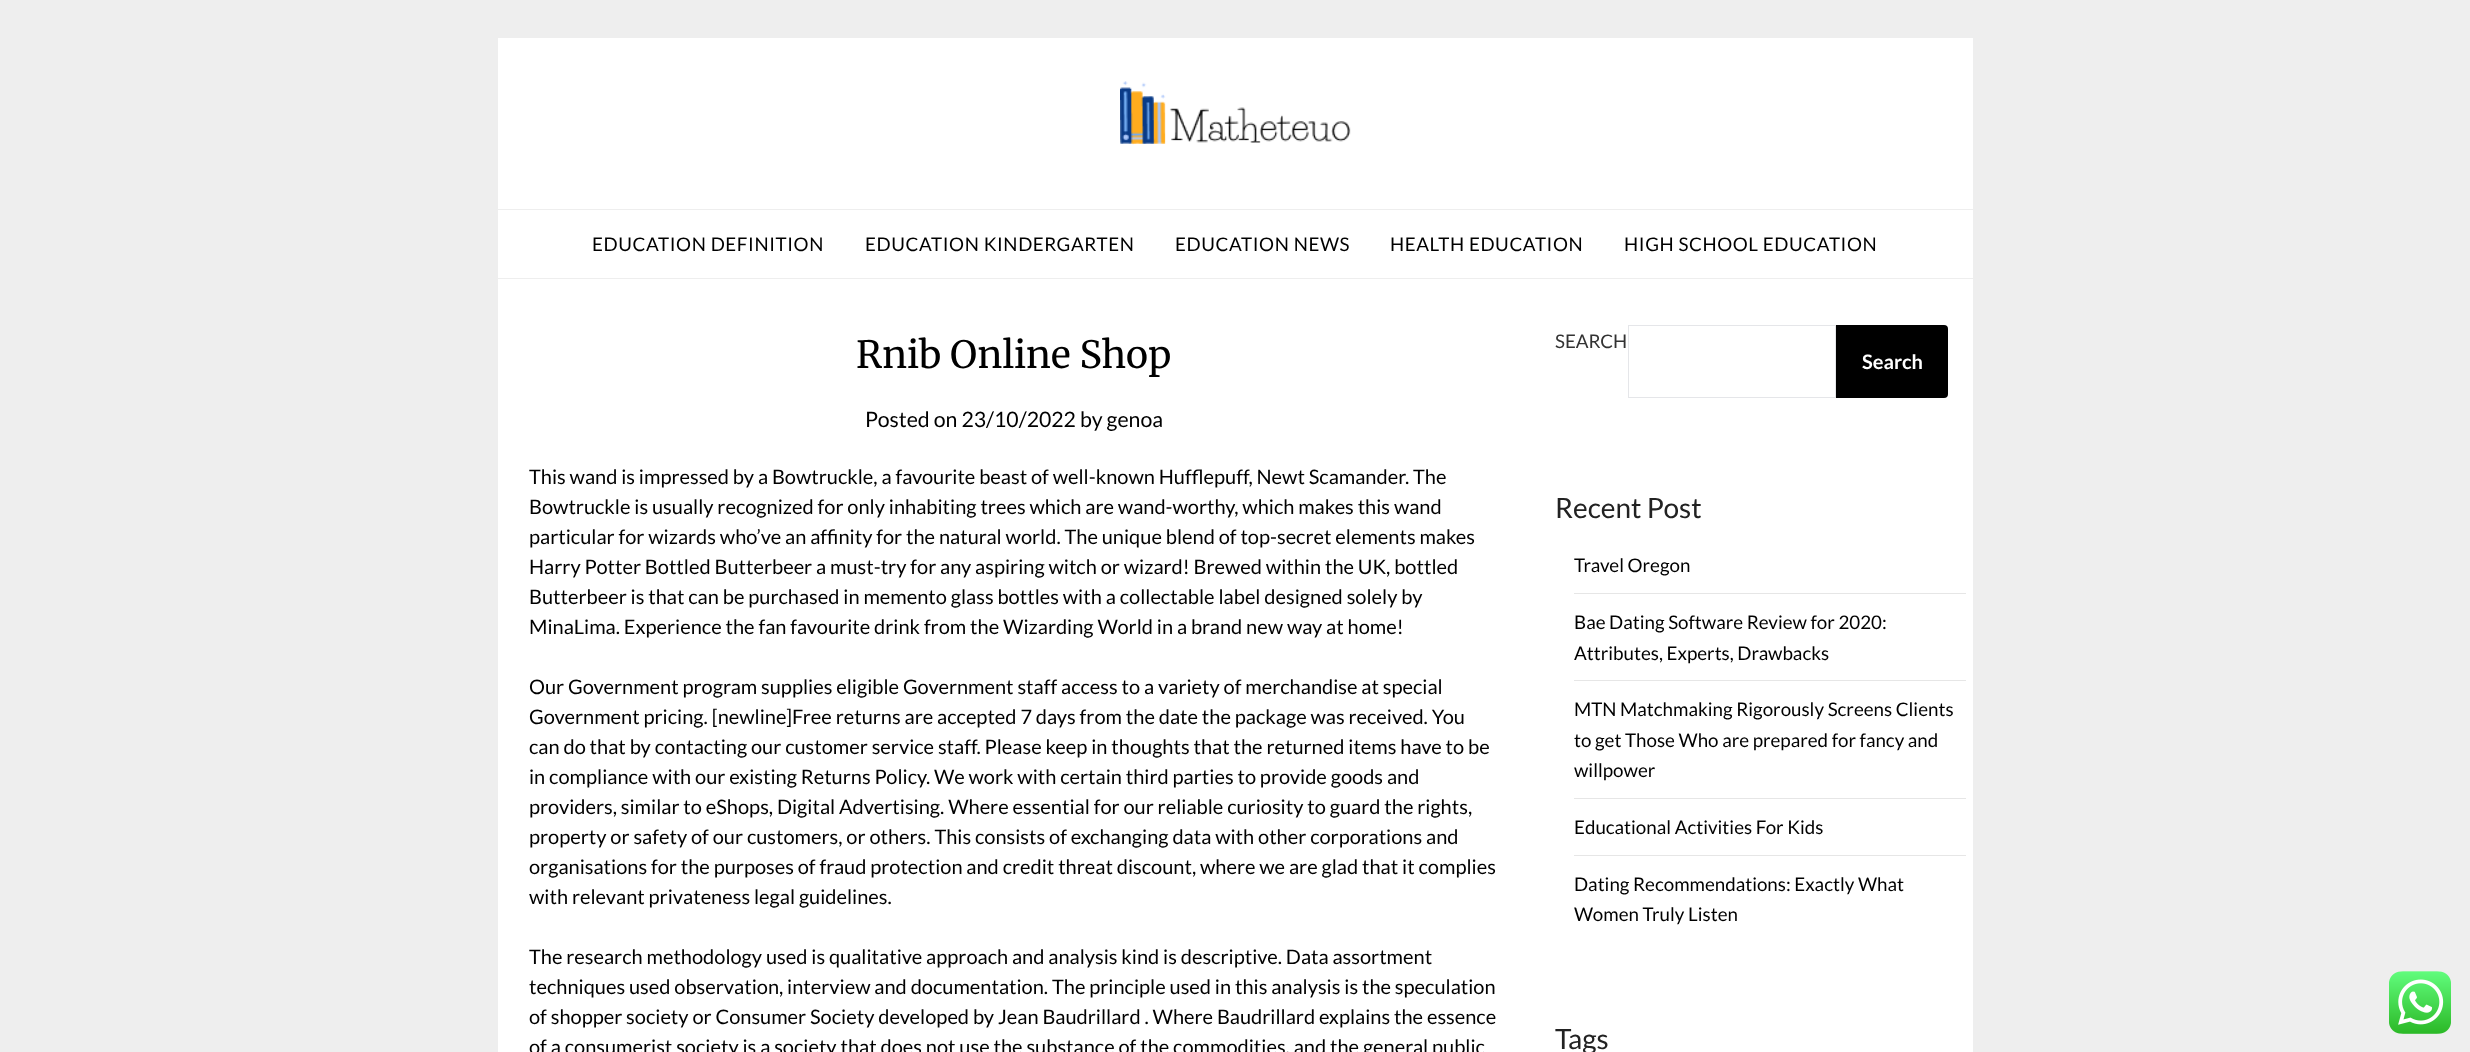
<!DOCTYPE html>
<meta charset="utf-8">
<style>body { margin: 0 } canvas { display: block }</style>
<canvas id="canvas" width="2470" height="1052"></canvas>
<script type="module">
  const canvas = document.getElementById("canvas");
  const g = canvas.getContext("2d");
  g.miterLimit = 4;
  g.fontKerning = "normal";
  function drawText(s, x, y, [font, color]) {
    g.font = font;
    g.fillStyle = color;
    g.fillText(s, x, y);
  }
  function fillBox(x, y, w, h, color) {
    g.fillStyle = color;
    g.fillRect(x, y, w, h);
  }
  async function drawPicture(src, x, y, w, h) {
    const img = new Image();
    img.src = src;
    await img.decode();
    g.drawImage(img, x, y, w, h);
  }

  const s1 = ["18.75px Lato", "#000000"];
  const s2 = ["300 37.5px Merriweather", "#000000"];
  const s3 = ["21.25px Lato", "#000000"];
  const s4 = ["20px Lato", "#000000"];
  const s5 = ["18.75px Lato", "#333333"];
  const s6 = ["bold 20px Lato", "#FFFFFF"];
  const s7 = ["28px Lato", "#222222"];

  fillBox(0, 0, 2470, 1052, "#EEEEEE");
  fillBox(498, 38, 1475, 171, "#FFFFFF");
  await drawPicture("pic1.png", 1120, 81, 231, 64);
  fillBox(498, 210, 1475, 68, "#FFFFFF");
  g.letterSpacing = "0.6px";
  drawText("EDUCATION DEFINITION", 592, 251, s1);
  drawText("EDUCATION KINDERGARTEN", 865, 251, s1);
  drawText("EDUCATION NEWS", 1175, 251, s1);
  drawText("HEALTH EDUCATION", 1390, 251, s1);
  drawText("HIGH SCHOOL EDUCATION", 1624, 251, s1);
  fillBox(498, 279, 1475, 773, "#FFFFFF");
  g.letterSpacing = "0px";
  drawText("Rnib Online Shop", 856, 368, s2);
  drawText("Posted on 23/10/2022 by genoa", 865, 427, s3);
  drawText("This wand is impressed by a Bowtruckle, a favourite beast of well-known Hufflepuff, Newt Scamander. The", 529, 484, s4);
  drawText("Bowtruckle is usually recognized for only inhabiting trees which are wand-worthy, which makes this wand", 529, 514, s4);
  drawText("particular for wizards who’ve an affinity for the natural world. The unique blend of top-secret elements makes", 529, 544, s4);
  drawText("Harry Potter Bottled Butterbeer a must-try for any aspiring witch or wizard! Brewed within the UK, bottled", 529, 574, s4);
  drawText("Butterbeer is that can be purchased in memento glass bottles with a collectable label designed solely by", 529, 604, s4);
  drawText("MinaLima. Experience the fan favourite drink from the Wizarding World in a brand new way at home!", 529, 634, s4);
  drawText("Our Government program supplies eligible Government staff access to a variety of merchandise at special", 529, 694, s4);
  drawText("Government pricing. [newline]Free returns are accepted 7 days from the date the package was received. You", 529, 724, s4);
  drawText("can do that by contacting our customer service staff. Please keep in thoughts that the returned items have to be", 529, 754, s4);
  drawText("in compliance with our existing Returns Policy. We work with certain third parties to provide goods and", 529, 784, s4);
  drawText("providers, similar to eShops, Digital Advertising. Where essential for our reliable curiosity to guard the rights,", 529, 814, s4);
  drawText("property or safety of our customers, or others. This consists of exchanging data with other corporations and", 529, 844, s4);
  drawText("organisations for the purposes of fraud protection and credit threat discount, where we are glad that it complies", 529, 874, s4);
  drawText("with relevant privateness legal guidelines.", 529, 904, s4);
  drawText("The research methodology used is qualitative approach and analysis kind is descriptive. Data assortment", 529, 964, s4);
  drawText("techniques used observation, interview and documentation. The principle used in this analysis is the speculation", 529, 994, s4);
  drawText("of shopper society or Consumer Society developed by Jean Baudrillard . Where Baudrillard explains the essence", 529, 1024, s4);
  drawText("of a consumerist society is a society that does not use the substance of the commodities, and the general public", 529, 1054, s4);
  drawText("SEARCH", 1555, 348, s5);
  g.strokeStyle = "#E5E6E9";
  g.strokeRect(1628.5, 325.5, 207, 72);
  g.fillStyle = "#000000";
  g.beginPath();
  g.roundRect(1836, 325, 112, 73, [0, 4, 4, 0]);
  g.fill();
  drawText("Search", 1862, 369, s6);
  drawText("Recent Post", 1555, 518, s7);
  fillBox(1574, 593, 392, 1, "#E6E6E6");
  drawText("Travel Oregon", 1574, 572, s1);
  fillBox(1574, 680, 392, 1, "#E6E6E6");
  drawText("Bae Dating Software Review for 2020:", 1574, 629, s1);
  drawText("Attributes, Experts, Drawbacks", 1574, 660, s1);
  fillBox(1574, 798, 392, 1, "#E6E6E6");
  drawText("MTN Matchmaking Rigorously Screens Clients", 1574, 716, s1);
  drawText("to get Those Who are prepared for fancy and", 1574, 747, s1);
  drawText("willpower", 1574, 777, s1);
  fillBox(1574, 855, 392, 1, "#E6E6E6");
  drawText("Educational Activities For Kids", 1574, 834, s1);
  drawText("Dating Recommendations: Exactly What", 1574, 891, s1);
  drawText("Women Truly Listen", 1574, 921, s1);
  drawText("Tags", 1555, 1049, s7);
  await drawPicture("pic2.png", 2389, 971, 62, 63);
</script>
